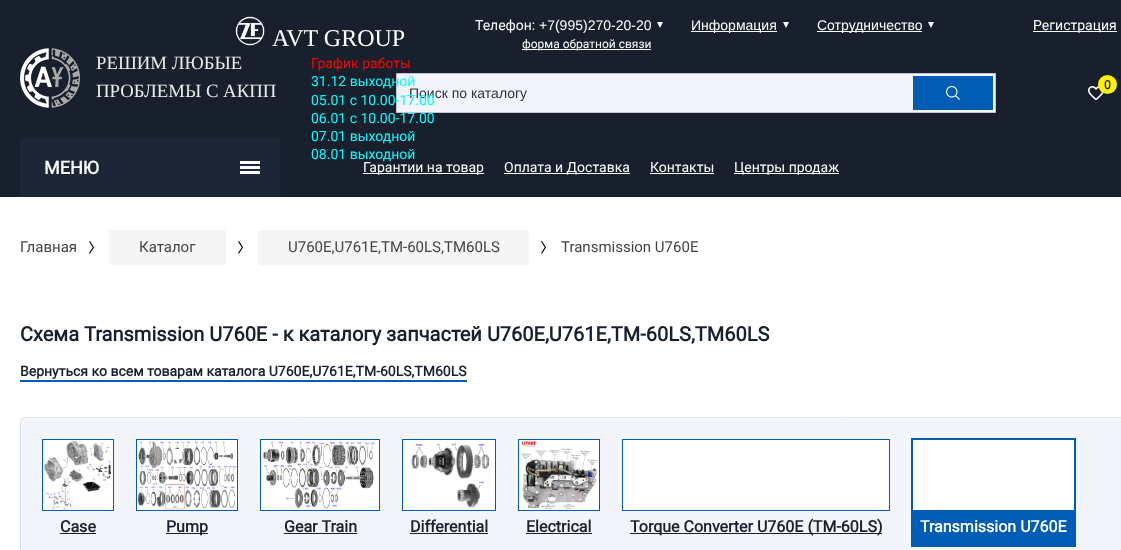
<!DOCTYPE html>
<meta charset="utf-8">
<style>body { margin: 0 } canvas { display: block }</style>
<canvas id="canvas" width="1121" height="550"></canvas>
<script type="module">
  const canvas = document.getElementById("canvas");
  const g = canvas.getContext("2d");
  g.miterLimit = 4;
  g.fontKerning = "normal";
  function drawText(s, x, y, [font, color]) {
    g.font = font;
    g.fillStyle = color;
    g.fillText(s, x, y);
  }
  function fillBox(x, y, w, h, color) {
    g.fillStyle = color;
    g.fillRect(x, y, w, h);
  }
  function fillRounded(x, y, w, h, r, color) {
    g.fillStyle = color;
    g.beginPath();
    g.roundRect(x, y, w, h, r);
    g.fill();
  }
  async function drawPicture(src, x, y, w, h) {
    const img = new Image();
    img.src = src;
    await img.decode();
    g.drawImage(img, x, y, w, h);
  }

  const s1 = ["14px Roboto", "#FFFFFF"];
  const s2 = ["14px Liberation Sans", "#FFFFFF"];
  const s3 = ["12px Roboto", "#FFFFFF"];
  const s4 = ["24px Liberation Serif", "#FFFFFF"];
  const s5 = ["14px Roboto", "#FF0000"];
  const s6 = ["14px Roboto", "#00FFFF"];
  const s7 = ["14px Liberation Sans", "#283346"];
  const s8 = ["18.75px Liberation Serif", "#EBEBEB"];
  const s9 = ["bold 12px Roboto", "#18202E"];
  const s10 = ["bold 18px Roboto", "#FFFFFF"];
  const s11 = ["15px Roboto", "#444444"];
  const s12 = ["bold 20px Roboto", "#18202E"];
  const s13 = ["bold 14px Roboto", "#18202E"];
  const s14 = ["bold 16px Roboto", "#18202E"];
  const s15 = ["bold 16px Roboto", "#FFFFFF"];

  fillBox(0, 0, 1121, 550, "#FFFFFF");
  fillBox(0, 0, 1121, 197, "#18202E");
  drawText("Телефон:", 475, 30, s1);
  drawText("+7(995)270-20-20", 539, 30, s2);
  g.beginPath();
  g.moveTo(657, 22);
  g.lineTo(663, 22);
  g.lineTo(660, 28);
  g.closePath();
  g.fill();
  fillBox(522, 49, 129, 1, "#FFFFFF");
  drawText("форма обратной связи", 522, 48, s3);
  fillBox(691, 31, 86, 1, "#FFFFFF");
  drawText("Информация", 691, 30, s2);
  g.beginPath();
  g.moveTo(783, 22);
  g.lineTo(789, 22);
  g.lineTo(786, 28);
  g.closePath();
  g.fill();
  fillBox(817, 31, 105, 1, "#FFFFFF");
  drawText("Сотрудничество", 817, 30, s2);
  g.beginPath();
  g.moveTo(928, 22);
  g.lineTo(934, 22);
  g.lineTo(931, 28);
  g.closePath();
  g.fill();
  fillBox(1033, 31, 84, 1, "#FFFFFF");
  drawText("Регистрация", 1033, 30, s1);
  await drawPicture("pic1.png", 235, 16, 30, 30);
  drawText("AVT GROUP", 272, 46, s4);
  drawText("График работы", 311, 68, s5);
  g.fillStyle = "#F4F5FB";
  g.beginPath();
  g.rect(396.5, 73.5, 599, 39);
  g.fill();
  g.strokeStyle = "#C0C4D7";
  g.stroke();
  drawText("31.12 выходной", 311, 86, s6);
  drawText("Поиск по каталогу", 409, 98, s7);
  drawText("05.01 с 10.00-17.00", 311, 105, s6);
  drawText("06.01 с 10.00-17.00", 311, 123, s6);
  drawText("07.01 выходной", 311, 141, s6);
  drawText("08.01 выходной", 311, 159, s6);
  await drawPicture("pic2.png", 20, 48, 60, 60);
  drawText("РЕШИМ ЛЮБЫЕ", 96, 69, s8);
  drawText("ПРОБЛЕМЫ С АКПП", 96, 97, s8);
  await drawPicture("pic3.png", 1088, 86, 16, 14);
  g.fillStyle = "#FFF100";
  g.beginPath();
  g.arc(1107.5, 84.5, 9.5, 0, Math.PI * 2);
  g.fill();
  drawText("0", 1104, 89, s9);
  fillBox(913, 76, 80, 34, "#015CB5");
  await drawPicture("pic4.png", 946, 86, 14, 14);
  fillBox(20, 138, 260, 59, "#1C2636");
  drawText("МЕНЮ", 44, 174, s10);
  fillBox(240, 166, 20, 3, "#FFFFFF");
  fillBox(240, 161, 20, 3, "#FFFFFF");
  fillBox(240, 171, 20, 3, "#FFFFFF");
  fillBox(363, 173, 121, 1, "#FFFFFF");
  drawText("Гарантии на товар", 363, 172, s1);
  fillBox(504, 173, 126, 1, "#FFFFFF");
  drawText("Оплата и Доставка", 504, 172, s1);
  drawText("Контакты", 650, 172, s1);
  fillBox(650, 173, 64, 1, "#FFFFFF");
  fillBox(734, 173, 105, 1, "#FFFFFF");
  drawText("Центры продаж", 734, 172, s1);
  await drawPicture("pic5.png", 89, 241, 5, 13);
  drawText("Главная", 20, 252, s11);
  await drawPicture("pic5.png", 238, 241, 5, 13);
  fillRounded(109, 230, 117, 35, 2, "#F5F5F5");
  drawText("Каталог", 139, 252, s11);
  await drawPicture("pic5.png", 541, 241, 5, 13);
  fillRounded(258, 230, 271, 35, 2, "#F5F5F5");
  drawText("U760E,U761E,TM-60LS,TM60LS", 288, 252, s11);
  drawText("Transmission U760E", 561, 252, s11);
  drawText("Схема Transmission U760E - к каталогу запчастей U760E,U761E,TM-60LS,TM60LS", 20, 341, s12);
  fillBox(20, 380, 447, 2, "#015CB5");
  drawText("Вернуться ко всем товарам каталога U760E,U761E,TM-60LS,TM60LS", 20, 376, s13);
  g.fillStyle = "#F4F5FB";
  g.beginPath();
  g.roundRect(20.5, 417.5, 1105, 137, 3.5);
  g.fill();
  g.strokeStyle = "#E0E4F6";
  g.stroke();
  g.strokeStyle = "#015CB5";
  g.strokeRect(42.5, 439.5, 71, 71);
  fillBox(43, 440, 70, 70, "#FFFFFF");
  await drawPicture("pic6.png", 44, 440, 68, 70);
  drawText("Case", 60, 532, s14);
  fillBox(60, 533, 36, 1, "#18202E");
  g.strokeRect(136.5, 439.5, 101, 71);
  fillBox(137, 440, 100, 70, "#FFFFFF");
  await drawPicture("pic7.png", 138, 441, 99, 69);
  fillBox(166, 533, 42, 1, "#18202E");
  drawText("Pump", 166, 532, s14);
  g.strokeRect(260.5, 439.5, 119, 71);
  fillBox(261, 440, 118, 70, "#FFFFFF");
  await drawPicture("pic8.png", 263, 441, 112, 68);
  drawText("Gear Train", 284, 532, s14);
  fillBox(284, 533, 73, 1, "#18202E");
  g.strokeRect(402.5, 439.5, 93, 71);
  fillBox(403, 440, 92, 70, "#FFFFFF");
  await drawPicture("pic9.png", 411, 443, 79, 65);
  drawText("Differential", 410, 532, s14);
  fillBox(410, 533, 78, 1, "#18202E");
  g.strokeRect(518.5, 439.5, 81, 71);
  fillBox(519, 440, 80, 70, "#FFFFFF");
  await drawPicture("pic10.png", 521, 441, 77, 69);
  drawText("Electrical", 526, 532, s14);
  fillBox(526, 533, 66, 1, "#18202E");
  g.strokeRect(622.5, 439.5, 267, 71);
  fillBox(623, 440, 266, 70, "#FFFFFF");
  fillBox(630, 533, 252, 1, "#18202E");
  drawText("Torque Converter U760E (TM-60LS)", 630, 532, s14);
  g.lineWidth = 2;
  g.strokeRect(912, 439, 163, 107);
  g.lineWidth = 1;
  g.strokeRect(912.5, 439.5, 162, 71);
  fillBox(913, 440, 161, 70, "#FFFFFF");
  fillBox(913, 511, 161, 34, "#015CB5");
  drawText("Transmission U760E", 920, 532, s15);
</script>
